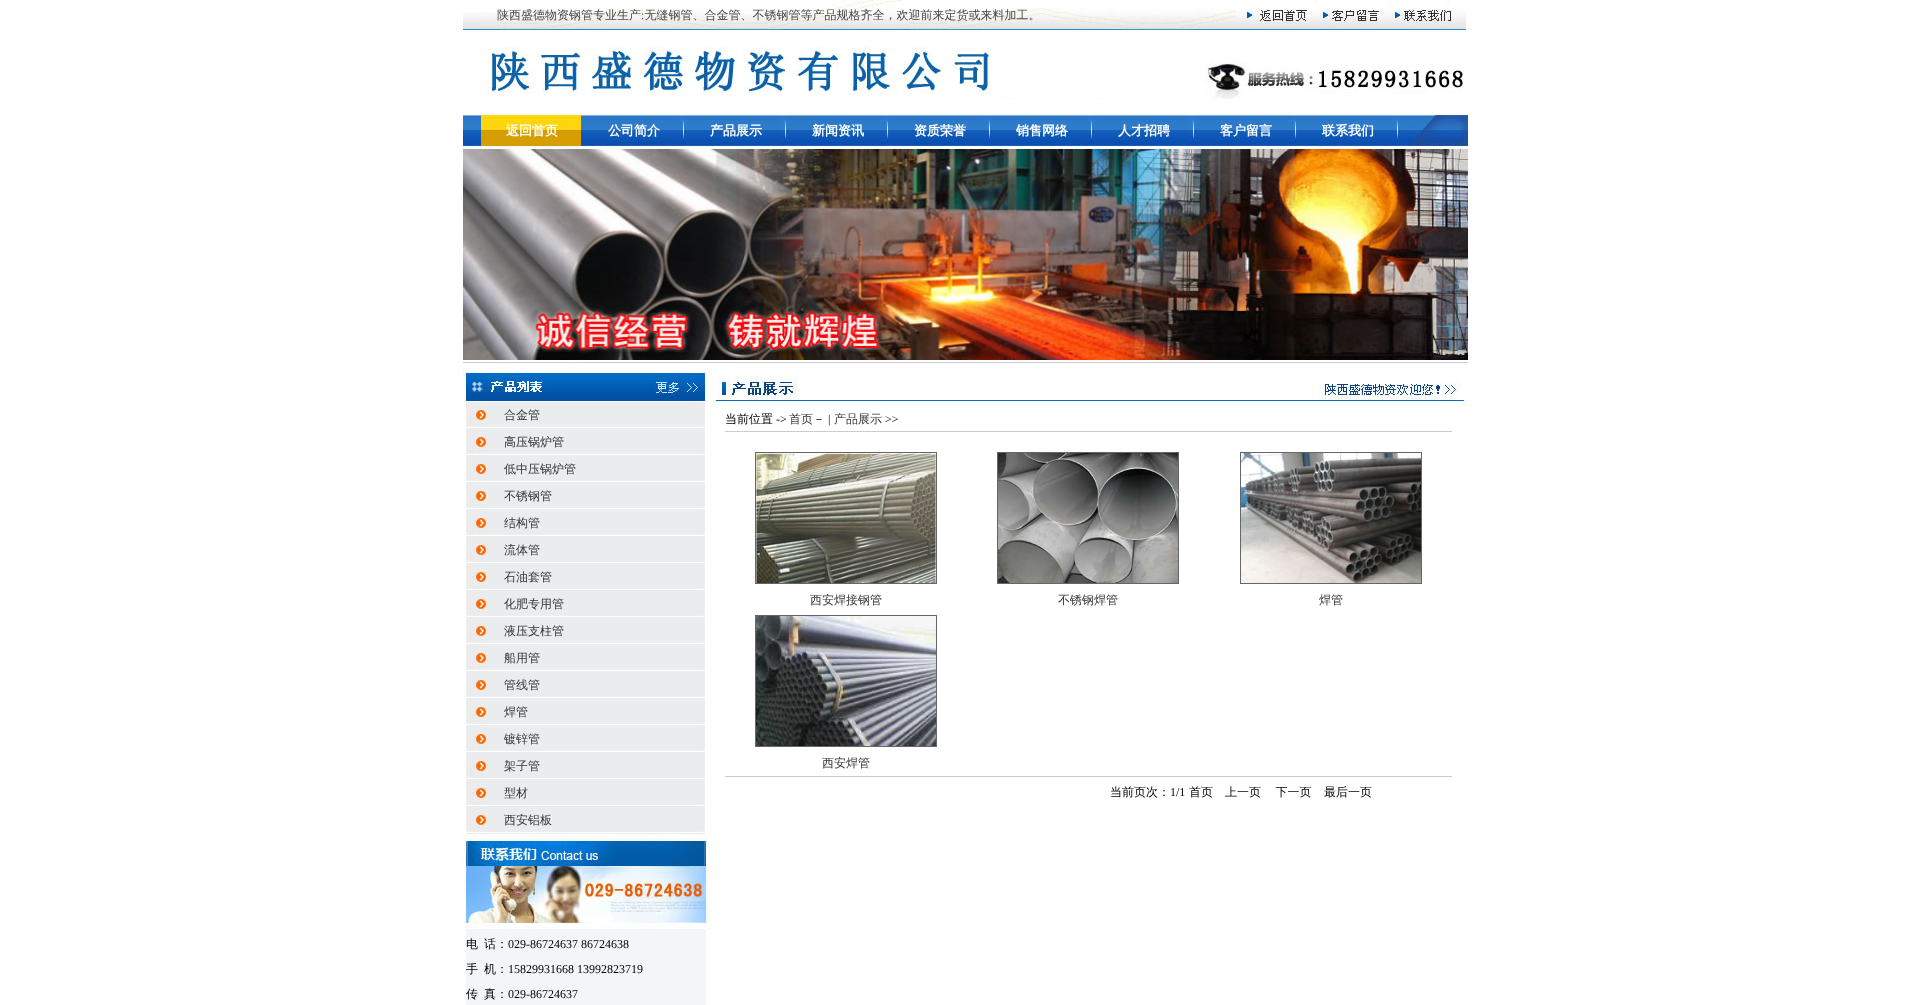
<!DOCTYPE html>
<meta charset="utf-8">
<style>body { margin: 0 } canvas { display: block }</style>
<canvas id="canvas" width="1930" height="1005"></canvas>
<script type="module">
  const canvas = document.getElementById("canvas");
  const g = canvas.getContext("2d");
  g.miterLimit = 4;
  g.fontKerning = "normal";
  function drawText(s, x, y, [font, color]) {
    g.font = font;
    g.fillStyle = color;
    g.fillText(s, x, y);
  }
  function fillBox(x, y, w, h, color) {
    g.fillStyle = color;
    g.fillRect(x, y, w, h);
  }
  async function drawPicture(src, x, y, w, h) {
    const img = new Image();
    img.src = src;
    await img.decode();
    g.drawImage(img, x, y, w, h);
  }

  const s1 = ["500 12px WenQuanYi Zen Hei", "#464646"];
  const s2 = ["12px Liberation Serif", "#464646"];
  const s3 = ["bold 13px WenQuanYi Zen Hei", "#FFFFFF"];
  const s4 = ["500 12px WenQuanYi Zen Hei", "#353535"];
  const s5 = ["500 12px WenQuanYi Zen Hei", "#000000"];
  const s6 = ["12px Liberation Serif", "#000000"];

  fillBox(0, 0, 1930, 1005, "#FFFFFF");
  await drawPicture("pic1.png", 463, 12, 34, 18);
  await drawPicture("pic2.png", 497, 0, 738, 30);
  drawText("陕西盛德物资钢管专业生产 无缝钢管、合金管、不锈钢管等产品规格齐全，欢迎前来定货或来料加工。", 497, 19, s1);
  drawText(":", 641, 19, s2);
  await drawPicture("pic3.png", 1235, 8, 79, 22);
  await drawPicture("pic4.png", 1314, 0, 72, 30);
  await drawPicture("pic5.png", 1386, 0, 80, 30);
  await drawPicture("pic6.png", 487, 30, 976, 70);
  await drawPicture("pic7.png", 463, 114, 18, 34);
  await drawPicture("pic8.png", 583, 113, 816, 34);
  await drawPicture("pic9.png", 481, 113, 102, 36);
  drawText("返回首页", 506, 135, s3);
  drawText("公司简介", 608, 135, s3);
  drawText("产品展示", 710, 135, s3);
  drawText("新闻资讯", 812, 135, s3);
  drawText("资质荣誉", 914, 135, s3);
  drawText("销售网络", 1016, 135, s3);
  drawText("人才招聘", 1118, 135, s3);
  drawText("客户留言", 1220, 135, s3);
  drawText("联系我们", 1322, 135, s3);
  await drawPicture("pic10.png", 1399, 113, 69, 36);
  await drawPicture("pic11.png", 463, 149, 1005, 211);
  await drawPicture("pic12.png", 463, 362, 247, 40);
  await drawPicture("pic13.png", 465, 402, 240, 216);
  drawText("合金管", 504, 419, s4);
  await drawPicture("pic14.png", 465, 436, 240, 19);
  drawText("高压锅炉管", 504, 446, s4);
  await drawPicture("pic15.png", 465, 462, 240, 20);
  drawText("低中压锅炉管", 504, 473, s4);
  await drawPicture("pic16.png", 465, 488, 240, 21);
  drawText("不锈钢管", 504, 500, s4);
  await drawPicture("pic17.png", 465, 514, 240, 22);
  drawText("结构管", 504, 527, s4);
  await drawPicture("pic18.png", 465, 540, 240, 23);
  drawText("流体管", 504, 554, s4);
  await drawPicture("pic19.png", 465, 566, 240, 24);
  drawText("石油套管", 504, 581, s4);
  await drawPicture("pic20.png", 465, 592, 240, 25);
  drawText("化肥专用管", 504, 608, s4);
  await drawPicture("pic21.png", 465, 618, 240, 27);
  drawText("液压支柱管", 504, 635, s4);
  await drawPicture("pic21.png", 465, 645, 240, 27);
  drawText("船用管", 504, 662, s4);
  await drawPicture("pic21.png", 465, 672, 240, 27);
  drawText("管线管", 504, 689, s4);
  await drawPicture("pic21.png", 465, 699, 240, 27);
  drawText("焊管", 504, 716, s4);
  await drawPicture("pic21.png", 465, 726, 240, 27);
  drawText("镀锌管", 504, 743, s4);
  await drawPicture("pic21.png", 465, 753, 240, 27);
  drawText("架子管", 504, 770, s4);
  await drawPicture("pic21.png", 465, 780, 240, 27);
  drawText("型材", 504, 797, s4);
  await drawPicture("pic21.png", 465, 807, 240, 27);
  drawText("西安铝板", 504, 824, s4);
  await drawPicture("pic22.png", 463, 834, 247, 95);
  fillBox(466, 929, 240, 76, "#F4F5F7");
  drawText("电", 466, 948, s5);
  drawText("话：", 484, 948, s5);
  drawText("029-86724637 86724638", 508, 948, s6);
  drawText("手", 466, 973, s5);
  drawText("机：", 484, 973, s5);
  drawText("15829931668 13992823719", 508, 973, s6);
  drawText("传", 466, 998, s5);
  drawText("真：", 484, 998, s5);
  drawText("029-86724637", 508, 998, s6);
  await drawPicture("pic23.png", 710, 362, 758, 44);
  drawText("当前位置", 725, 423, s5);
  drawText("->", 776, 423, s6);
  drawText("首页", 789, 423, s4);
  drawText("－", 813, 423, s5);
  drawText("|", 828, 423, s6);
  drawText("产品展示", 834, 423, s4);
  drawText(">>", 885, 423, s6);
  fillBox(725, 431, 727, 1, "#CCCCCC");
  g.strokeStyle = "#666666";
  g.strokeRect(755.5, 452.5, 181, 131);
  await drawPicture("pic24.png", 756, 453, 180, 130);
  drawText("西安焊接钢管", 810, 604, s4);
  g.strokeRect(997.5, 452.5, 181, 131);
  await drawPicture("pic25.png", 998, 453, 180, 130);
  drawText("不锈钢焊管", 1058, 604, s4);
  g.strokeRect(1240.5, 452.5, 181, 131);
  await drawPicture("pic26.png", 1241, 453, 180, 130);
  drawText("焊管", 1319, 604, s4);
  g.strokeRect(755.5, 615.5, 181, 131);
  await drawPicture("pic27.png", 756, 616, 180, 130);
  drawText("西安焊管", 822, 767, s4);
  fillBox(725, 776, 727, 1, "#CCCCCC");
  drawText("当前页次：", 1110, 796, s5);
  drawText("1/1", 1170, 796, s6);
  drawText("首页", 1189, 796, s5);
  g.wordSpacing = "-1px";
  drawText("上一页 　下一页", 1225, 796, s5);
  g.wordSpacing = "0px";
  drawText("最后一页", 1324, 796, s5);
</script>
